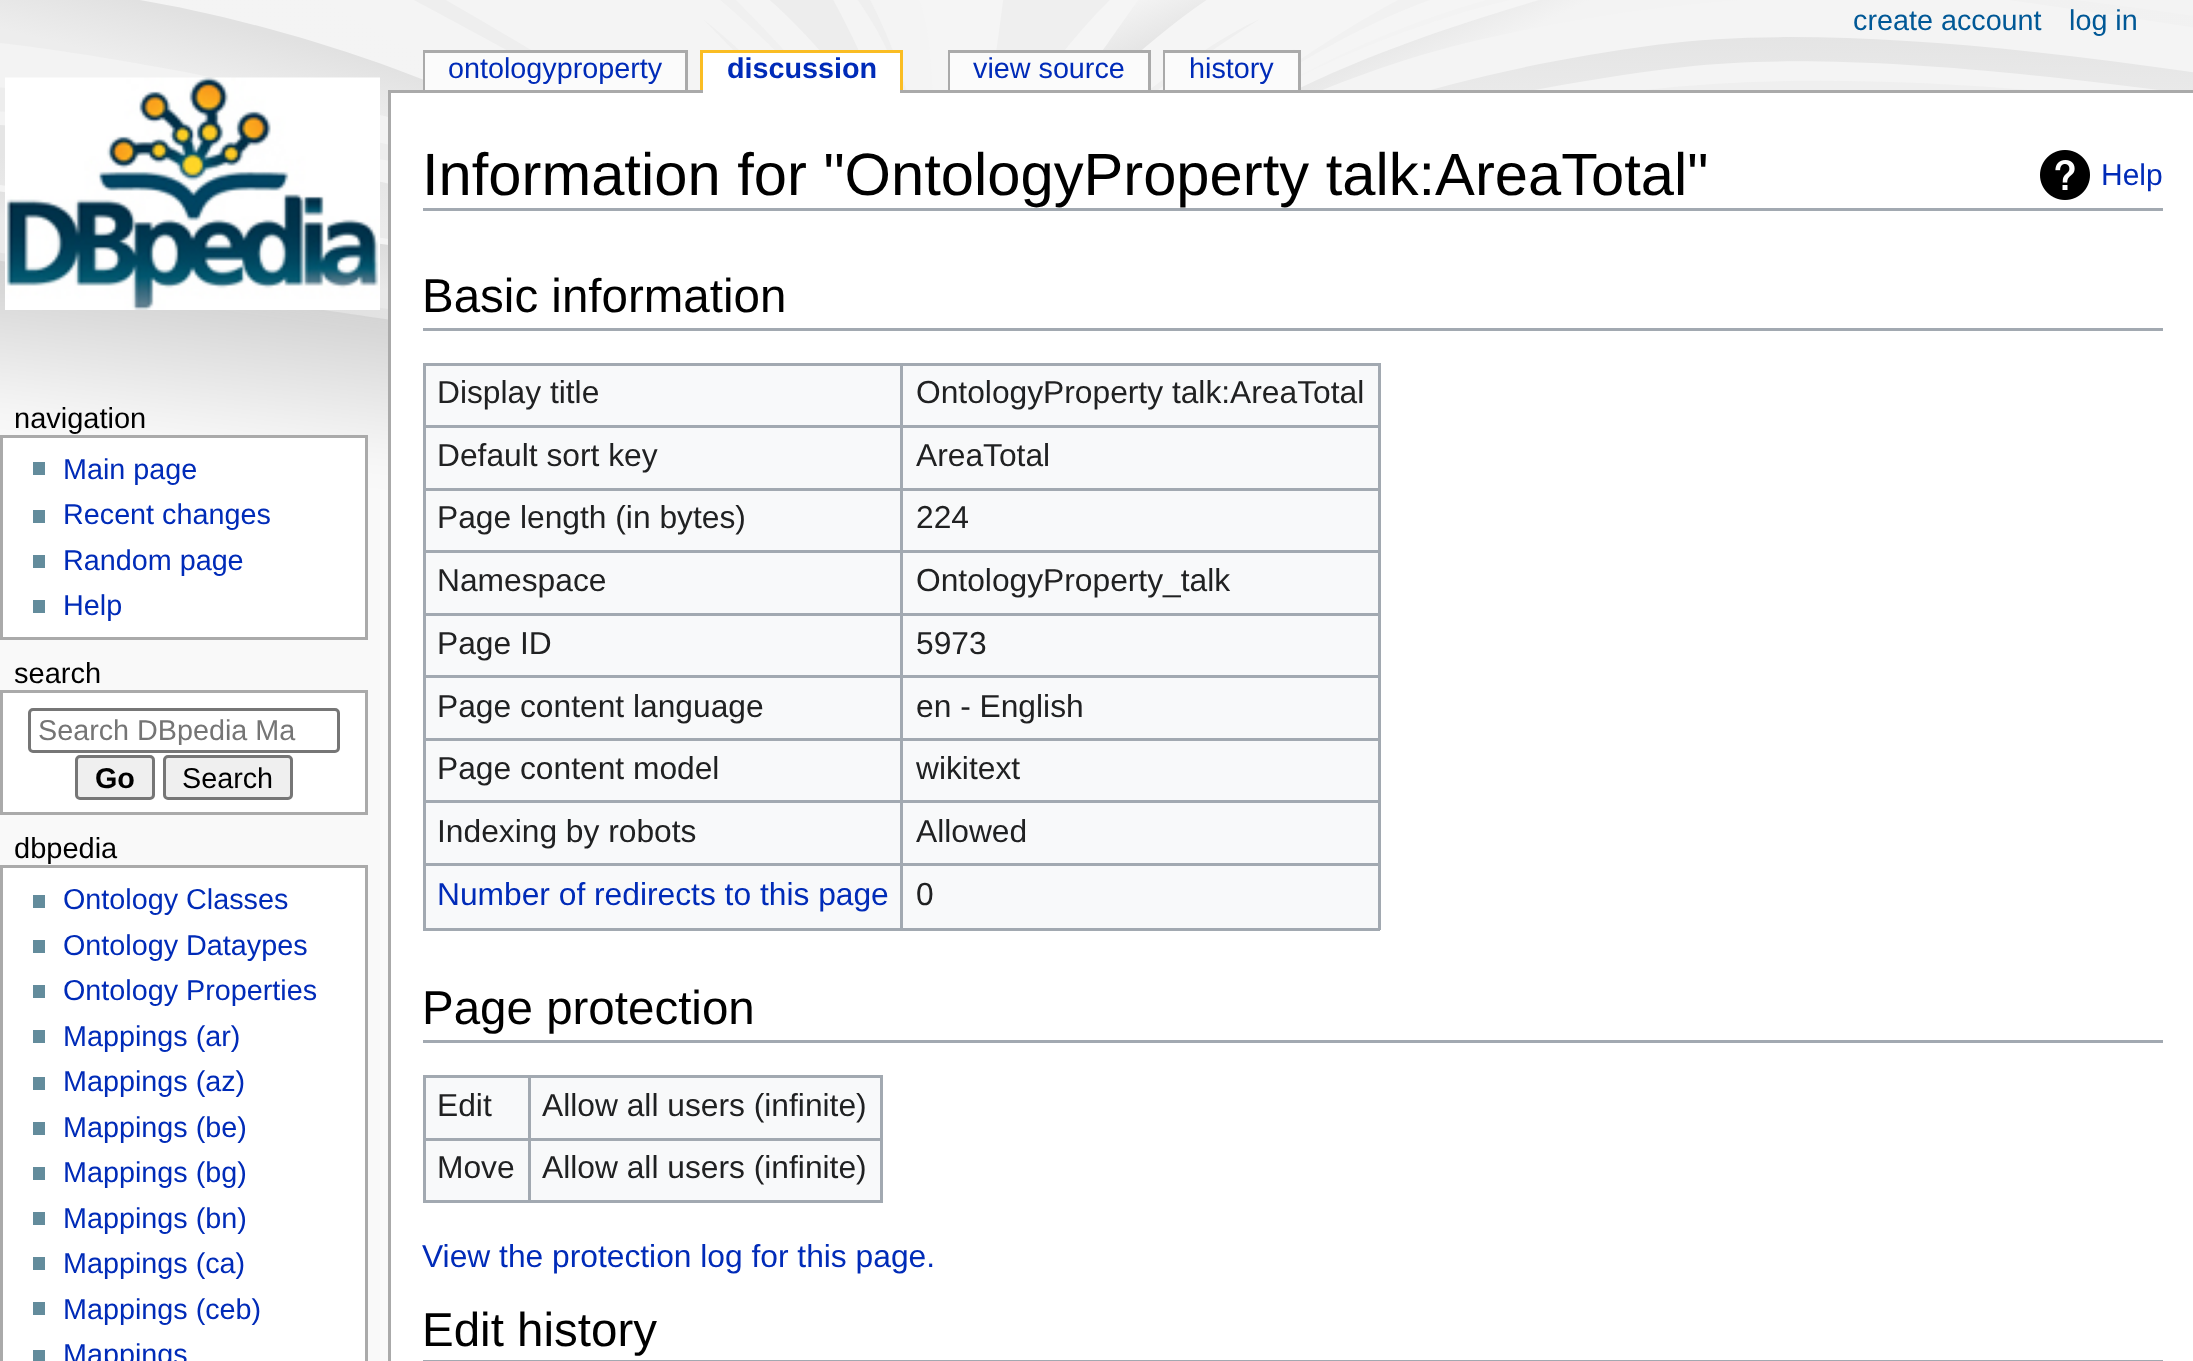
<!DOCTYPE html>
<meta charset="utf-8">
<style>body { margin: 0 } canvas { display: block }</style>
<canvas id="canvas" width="2193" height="1361"></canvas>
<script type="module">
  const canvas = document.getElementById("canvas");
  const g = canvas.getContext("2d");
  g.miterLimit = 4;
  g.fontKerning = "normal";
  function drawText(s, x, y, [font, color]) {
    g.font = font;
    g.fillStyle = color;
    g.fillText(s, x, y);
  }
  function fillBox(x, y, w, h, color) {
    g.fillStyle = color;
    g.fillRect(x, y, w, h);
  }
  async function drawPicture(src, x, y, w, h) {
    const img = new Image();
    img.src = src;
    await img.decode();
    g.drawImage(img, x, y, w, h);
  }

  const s1 = ["28.75px Liberation Sans", "#005896"];
  const s2 = ["28.75px Liberation Sans", "#002BB8"];
  const s3 = ["bold 28.75px Liberation Sans", "#002BB8"];
  const s4 = ["29px Liberation Sans", "#000000"];
  const s5 = ["28.75px Liberation Sans", "#757575"];
  const s6 = ["bold 28.75px Liberation Sans", "#000000"];
  const s7 = ["28.75px Liberation Sans", "#000000"];
  const s8 = ["59.7px Liberation Sans", "#000000"];
  const s9 = ["30px Liberation Sans", "#002BB8"];
  const s10 = ["47.5px Liberation Sans", "#000000"];
  const s11 = ["31.75px Liberation Sans", "#202122"];
  const s12 = ["31.75px Liberation Sans", "#002BB8"];

  fillBox(0, 0, 2193, 1361, "#F9F9F9");
  await drawPicture("pic1.png", 0, 0, 2193, 525);
  drawText("create account", 1853, 30, s1);
  drawText("log in", 2069, 30, s1);
  fillBox(423, 50, 265, 3, "#AAAAAA");
  fillBox(423, 50, 3, 40, "#AAAAAA");
  fillBox(425, 53, 260, 37, "#FBFBFB");
  drawText("ontologyproperty", 448, 78, s2);
  fillBox(685, 50, 3, 40, "#AAAAAA");
  fillBox(388, 90, 1805, 3, "#AAAAAA");
  fillBox(703, 53, 197, 40, "#FFFFFF");
  drawText("discussion", 727, 78, s3);
  fillBox(700, 50, 203, 3, "#FABD23");
  fillBox(900, 50, 3, 40, "#FABD23");
  fillBox(700, 50, 3, 40, "#FABD23");
  fillBox(948, 50, 202, 3, "#AAAAAA");
  fillBox(948, 50, 3, 40, "#AAAAAA");
  fillBox(950, 53, 198, 37, "#FBFBFB");
  drawText("view source", 973, 78, s2);
  fillBox(1148, 50, 3, 40, "#AAAAAA");
  fillBox(1163, 50, 137, 3, "#AAAAAA");
  fillBox(1163, 50, 3, 40, "#AAAAAA");
  fillBox(1165, 53, 133, 37, "#FBFBFB");
  drawText("history", 1189, 78, s2);
  fillBox(1298, 50, 3, 40, "#AAAAAA");
  await drawPicture("pic2.png", 5, 77, 375, 233);
  drawText("navigation", 14, 428, s4);
  g.fillStyle = "#FFFFFF";
  g.beginPath();
  g.rect(1.5, 436.5, 365, 202);
  g.fill();
  g.strokeStyle = "#AAAAAA";
  g.lineWidth = 3;
  g.stroke();
  fillBox(33, 462, 12, 13, "#638C9C");
  drawText("Main page", 63, 479, s2);
  fillBox(33, 510, 12, 13, "#638C9C");
  drawText("Recent changes", 63, 524, s2);
  fillBox(33, 555, 12, 13, "#638C9C");
  drawText("Random page", 63, 570, s2);
  fillBox(33, 600, 12, 13, "#638C9C");
  drawText("Help", 63, 615, s2);
  drawText("search", 14, 683, s4);
  g.fillStyle = "#FFFFFF";
  g.beginPath();
  g.rect(1.5, 691.5, 365, 122);
  g.fill();
  g.stroke();
  g.beginPath();
  g.roundRect(29.5, 709.5, 309, 42, 3.5);
  g.strokeStyle = "#767676";
  g.stroke();
  g.save();
  g.beginPath();
  g.rect(38, 715, 262, 30);
  g.clip();
  drawText("Search DBpedia Ma", 38, 740, s5);
  g.restore();
  g.fillStyle = "#EFEFEF";
  g.beginPath();
  g.roundRect(76.5, 756.5, 77, 42, 3.5);
  g.fill();
  g.stroke();
  drawText("Go", 95, 788, s6);
  g.fillStyle = "#EFEFEF";
  g.beginPath();
  g.roundRect(164.5, 756.5, 127, 42, 3.5);
  g.fill();
  g.stroke();
  drawText("Search", 182, 788, s7);
  drawText("dbpedia", 14, 858, s4);
  g.fillStyle = "#FFFFFF";
  g.beginPath();
  g.rect(1.5, 866.5, 365, 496);
  g.fill();
  g.strokeStyle = "#AAAAAA";
  g.stroke();
  fillBox(33, 895, 12, 13, "#638C9C");
  drawText("Ontology Classes", 63, 909, s2);
  fillBox(33, 940, 12, 13, "#638C9C");
  drawText("Ontology Dataypes", 63, 955, s2);
  fillBox(33, 985, 12, 13, "#638C9C");
  drawText("Ontology Properties", 63, 1000, s2);
  fillBox(33, 1030, 12, 13, "#638C9C");
  drawText("Mappings (ar)", 63, 1046, s2);
  fillBox(33, 1077, 12, 13, "#638C9C");
  drawText("Mappings (az)", 63, 1091, s2);
  fillBox(33, 1122, 12, 13, "#638C9C");
  drawText("Mappings (be)", 63, 1137, s2);
  fillBox(33, 1167, 12, 13, "#638C9C");
  drawText("Mappings (bg)", 63, 1182, s2);
  fillBox(33, 1212, 12, 13, "#638C9C");
  drawText("Mappings (bn)", 63, 1228, s2);
  fillBox(33, 1257, 12, 13, "#638C9C");
  drawText("Mappings (ca)", 63, 1273, s2);
  fillBox(33, 1302, 12, 13, "#638C9C");
  drawText("Mappings (ceb)", 63, 1319, s2);
  fillBox(33, 1350, 12, 11, "#638C9C");
  drawText("Mappings", 63, 1364, s2);
  fillBox(391, 93, 1802, 1268, "#FFFFFF");
  fillBox(388, 90, 3, 1271, "#AAAAAA");
  fillBox(423, 208, 1740, 3, "#A2A9B1");
  drawText("Information for \"OntologyProperty talk:AreaTotal\"", 422, 195, s8);
  await drawPicture("pic3.png", 2040, 150, 50, 50);
  drawText("Help", 2101, 185, s9);
  fillBox(423, 328, 1740, 3, "#A2A9B1");
  drawText("Basic information", 422, 312, s10);
  fillBox(426, 366, 952, 562, "#F8F9FA");
  fillBox(423, 363, 957, 3, "#A2A9B1");
  fillBox(1378, 363, 3, 567, "#A2A9B1");
  fillBox(423, 928, 957, 3, "#A2A9B1");
  fillBox(423, 363, 3, 567, "#A2A9B1");
  drawText("Display title", 437, 403, s11);
  fillBox(900, 425, 480, 3, "#A2A9B1");
  fillBox(900, 488, 480, 3, "#A2A9B1");
  fillBox(900, 550, 480, 3, "#A2A9B1");
  fillBox(900, 613, 480, 3, "#A2A9B1");
  fillBox(900, 675, 480, 3, "#A2A9B1");
  fillBox(900, 738, 480, 3, "#A2A9B1");
  fillBox(900, 800, 480, 3, "#A2A9B1");
  fillBox(900, 863, 480, 3, "#A2A9B1");
  fillBox(900, 863, 3, 67, "#A2A9B1");
  fillBox(423, 863, 480, 3, "#A2A9B1");
  fillBox(900, 800, 3, 65, "#A2A9B1");
  fillBox(423, 800, 480, 3, "#A2A9B1");
  fillBox(900, 738, 3, 65, "#A2A9B1");
  fillBox(423, 738, 480, 3, "#A2A9B1");
  fillBox(900, 675, 3, 65, "#A2A9B1");
  fillBox(423, 675, 480, 3, "#A2A9B1");
  fillBox(900, 613, 3, 65, "#A2A9B1");
  fillBox(423, 613, 480, 3, "#A2A9B1");
  fillBox(900, 550, 3, 65, "#A2A9B1");
  fillBox(423, 550, 480, 3, "#A2A9B1");
  fillBox(900, 488, 3, 65, "#A2A9B1");
  fillBox(423, 488, 480, 3, "#A2A9B1");
  fillBox(900, 425, 3, 65, "#A2A9B1");
  fillBox(423, 425, 480, 3, "#A2A9B1");
  fillBox(900, 363, 3, 65, "#A2A9B1");
  drawText("OntologyProperty talk:AreaTotal", 916, 403, s11);
  drawText("Default sort key", 437, 466, s11);
  drawText("AreaTotal", 916, 466, s11);
  drawText("Page length (in bytes)", 437, 528, s11);
  drawText("224", 916, 528, s11);
  drawText("Namespace", 437, 591, s11);
  drawText("OntologyProperty_talk", 916, 591, s11);
  drawText("Page ID", 437, 654, s11);
  drawText("5973", 916, 654, s11);
  drawText("Page content language", 437, 717, s11);
  drawText("en - English", 916, 717, s11);
  drawText("Page content model", 437, 779, s11);
  drawText("wikitext", 916, 779, s11);
  drawText("Indexing by robots", 437, 842, s11);
  drawText("Allowed", 916, 842, s11);
  drawText("Number of redirects to this page", 437, 905, s12);
  drawText("0", 916, 905, s11);
  fillBox(423, 1040, 1740, 3, "#A2A9B1");
  drawText("Page protection", 422, 1024, s10);
  fillBox(426, 1078, 454, 122, "#F8F9FA");
  fillBox(423, 1075, 460, 3, "#A2A9B1");
  fillBox(880, 1075, 3, 128, "#A2A9B1");
  fillBox(423, 1200, 460, 3, "#A2A9B1");
  fillBox(423, 1075, 3, 128, "#A2A9B1");
  drawText("Edit", 437, 1116, s11);
  fillBox(528, 1138, 355, 3, "#A2A9B1");
  fillBox(528, 1138, 3, 65, "#A2A9B1");
  fillBox(423, 1138, 107, 3, "#A2A9B1");
  fillBox(528, 1075, 3, 65, "#A2A9B1");
  drawText("Allow all users (infinite)", 542, 1116, s11);
  drawText("Move", 437, 1178, s11);
  drawText("Allow all users (infinite)", 542, 1178, s11);
  drawText("View the protection log for this page.", 422, 1267, s12);
  fillBox(423, 1360, 1740, 1, "#A2A9B1");
  drawText("Edit history", 422, 1346, s10);
</script>
